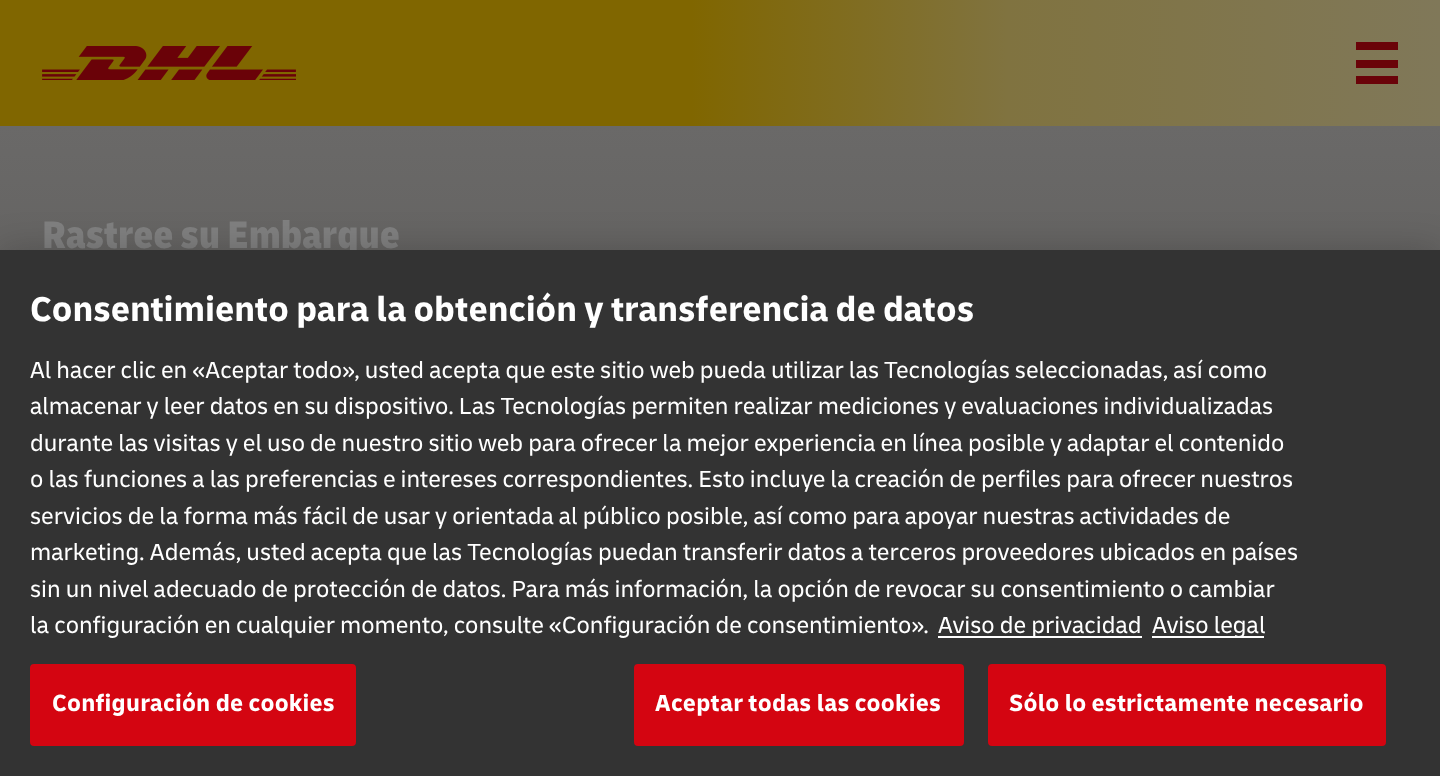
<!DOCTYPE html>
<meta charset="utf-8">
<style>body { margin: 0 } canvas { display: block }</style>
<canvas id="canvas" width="1440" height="776"></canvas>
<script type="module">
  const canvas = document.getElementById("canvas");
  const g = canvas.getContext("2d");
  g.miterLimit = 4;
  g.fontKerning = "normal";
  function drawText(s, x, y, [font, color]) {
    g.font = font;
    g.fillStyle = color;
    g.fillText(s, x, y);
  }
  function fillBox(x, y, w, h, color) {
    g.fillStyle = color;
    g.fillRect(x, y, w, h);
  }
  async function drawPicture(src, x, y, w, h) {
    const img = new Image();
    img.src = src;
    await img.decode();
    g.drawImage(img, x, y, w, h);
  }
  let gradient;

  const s1 = ["800 40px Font", "#808080"];
  const s2 = ["bold 36px Font", "#FFFFFF"];
  const s3 = ["24.4px Font", "#FFFFFF"];
  const s4 = ["bold 24.4px Font", "#FFFFFF"];

  fillBox(0, 0, 1440, 776, "#FFFFFF");
  gradient = g.createLinearGradient(0, 63, 1440, 63);
  gradient.addColorStop(0, "#806600");
  gradient.addColorStop(0.48, "#806600");
  gradient.addColorStop(0.7, "#807340");
  gradient.addColorStop(1, "#807859");
  g.fillStyle = gradient;
  g.fillRect(0, 0, 1440, 126);
  await drawPicture("pic1.png", 42, 46, 254, 34);
  fillBox(1356, 42, 42, 8, "#6A0309");
  fillBox(1356, 60, 42, 8, "#6A0309");
  fillBox(1356, 76, 42, 8, "#6A0309");
  gradient = g.createLinearGradient(720, 126, 720, 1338);
  gradient.addColorStop(0, "#6A6968");
  gradient.addColorStop(1, "#3E3B38");
  g.fillStyle = gradient;
  g.fillRect(0, 126, 1440, 124);
  drawText("Rastree su Embarque", 42, 248, s1);
  g.fillStyle = "rgba(0, 0, 0, 0.2)";
  g.filter = "blur(18px)";
  g.beginPath();
  g.rect(0, 250, 1440, 526);
  g.fill();
  g.filter = "none";
  fillBox(0, 250, 1440, 526, "#333333");
  drawText("Consentimiento para la obtención y transferencia de datos", 30, 321, s2);
  drawText("Al hacer clic en «Aceptar todo», usted acepta que este sitio web pueda utilizar las Tecnologías seleccionadas, así como", 30, 378, s3);
  drawText("almacenar y leer datos en su dispositivo. Las Tecnologías permiten realizar mediciones y evaluaciones individualizadas", 30, 414, s3);
  drawText("durante las visitas y el uso de nuestro sitio web para ofrecer la mejor experiencia en línea posible y adaptar el contenido", 30, 451, s3);
  drawText("o las funciones a las preferencias e intereses correspondientes. Esto incluye la creación de perfiles para ofrecer nuestros", 30, 487, s3);
  drawText("servicios de la forma más fácil de usar y orientada al público posible, así como para apoyar nuestras actividades de", 30, 524, s3);
  drawText("marketing. Además, usted acepta que las Tecnologías puedan transferir datos a terceros proveedores ubicados en países", 30, 560, s3);
  drawText("sin un nivel adecuado de protección de datos. Para más información, la opción de revocar su consentimiento o cambiar", 30, 597, s3);
  drawText("la configuración en cualquier momento, consulte «Configuración de consentimiento».", 30, 633, s3);
  fillBox(938, 636, 204, 2, "#FFFFFF");
  drawText("Aviso de privacidad", 938, 633, s3);
  fillBox(1152, 636, 112, 2, "#FFFFFF");
  drawText("Aviso legal", 1152, 633, s3);
  g.fillStyle = "#D40511";
  g.beginPath();
  g.roundRect(31, 665, 324, 80, 3);
  g.fill();
  g.strokeStyle = "#D40511";
  g.lineWidth = 2;
  g.stroke();
  g.letterSpacing = "0.25px";
  drawText("Configuración de cookies", 52, 711, s4);
  g.fillStyle = "#D40511";
  g.beginPath();
  g.roundRect(635, 665, 328, 80, 3);
  g.fill();
  g.stroke();
  drawText("Aceptar todas las cookies", 655, 711, s4);
  g.fillStyle = "#D40511";
  g.beginPath();
  g.roundRect(989, 665, 396, 80, 3);
  g.fill();
  g.stroke();
  drawText("Sólo lo estrictamente necesario", 1009, 711, s4);
</script>
